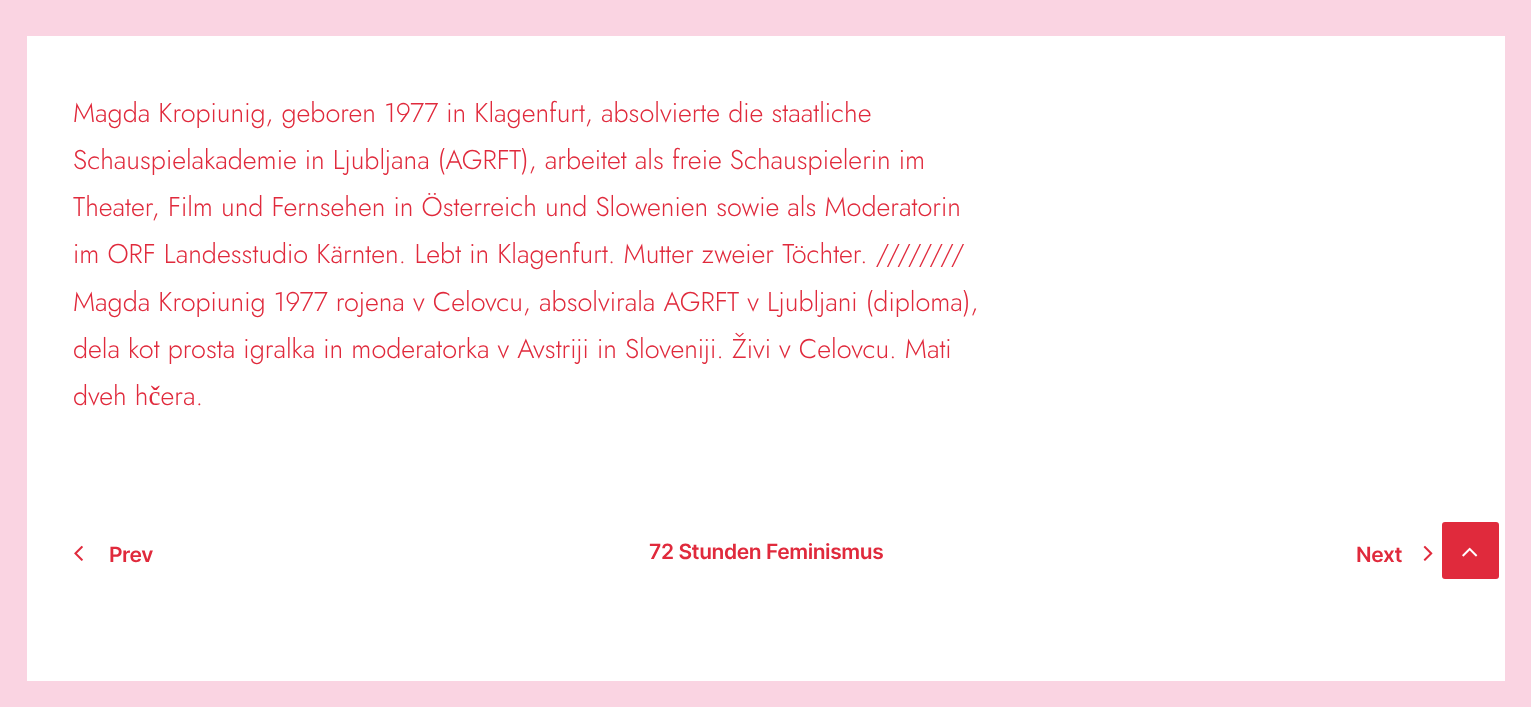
<!DOCTYPE html>
<meta charset="utf-8">
<style>body { margin: 0 } canvas { display: block }</style>
<canvas id="canvas" width="1531" height="707"></canvas>
<script type="module">
  const canvas = document.getElementById("canvas");
  const g = canvas.getContext("2d");
  g.miterLimit = 4;
  g.fontKerning = "normal";
  function drawText(s, x, y, [font, color]) {
    g.font = font;
    g.fillStyle = color;
    g.fillText(s, x, y);
  }
  function fillBox(x, y, w, h, color) {
    g.fillStyle = color;
    g.fillRect(x, y, w, h);
  }
  async function drawPicture(src, x, y, w, h) {
    const img = new Image();
    img.src = src;
    await img.decode();
    g.drawImage(img, x, y, w, h);
  }

  const s1 = ["300 27px Jost", "#E02A3C"];
  const s2 = ["600 21px Inter", "#E02A3C"];

  fillBox(0, 0, 1531, 707, "#FFFFFF");
  fillBox(0, 0, 27, 707, "#FAD4E2");
  fillBox(1505, 0, 26, 681, "#FAD4E2");
  fillBox(27, 681, 1504, 26, "#FAD4E2");
  fillBox(27, 0, 1478, 36, "#FAD4E2");
  drawText("Magda Kropiunig, geboren 1977 in Klagenfurt, absolvierte die staatliche", 73, 122, s1);
  drawText("Schauspielakademie in Ljubljana (AGRFT), arbeitet als freie Schauspielerin im", 73, 169, s1);
  drawText("Theater, Film und Fernsehen in Österreich und Slowenien sowie als Moderatorin", 73, 216, s1);
  drawText("im ORF Landesstudio Kärnten. Lebt in Klagenfurt. Mutter zweier Töchter. ////////", 73, 263, s1);
  drawText("Magda Kropiunig 1977 rojena v Celovcu, absolvirala AGRFT v Ljubljani (diploma),", 73, 311, s1);
  drawText("dela kot prosta igralka in moderatorka v Avstriji in Sloveniji. Živi v Celovcu. Mati", 73, 358, s1);
  drawText("dveh hčera.", 73, 405, s1);
  await drawPicture("pic1.png", 74, 545, 9, 16);
  g.letterSpacing = "-0.4px";
  drawText("Prev", 109, 562, s2);
  drawText("72 Stunden Feminismus", 649, 559, s2);
  drawText("Next", 1356, 562, s2);
  await drawPicture("pic2.png", 1423, 545, 10, 16);
  g.beginPath();
  g.roundRect(1443, 523, 55, 55, 2);
  g.fill();
  g.strokeStyle = "#E02A3C";
  g.lineWidth = 2;
  g.stroke();
  await drawPicture("pic3.png", 1462, 547, 16, 10);
</script>
